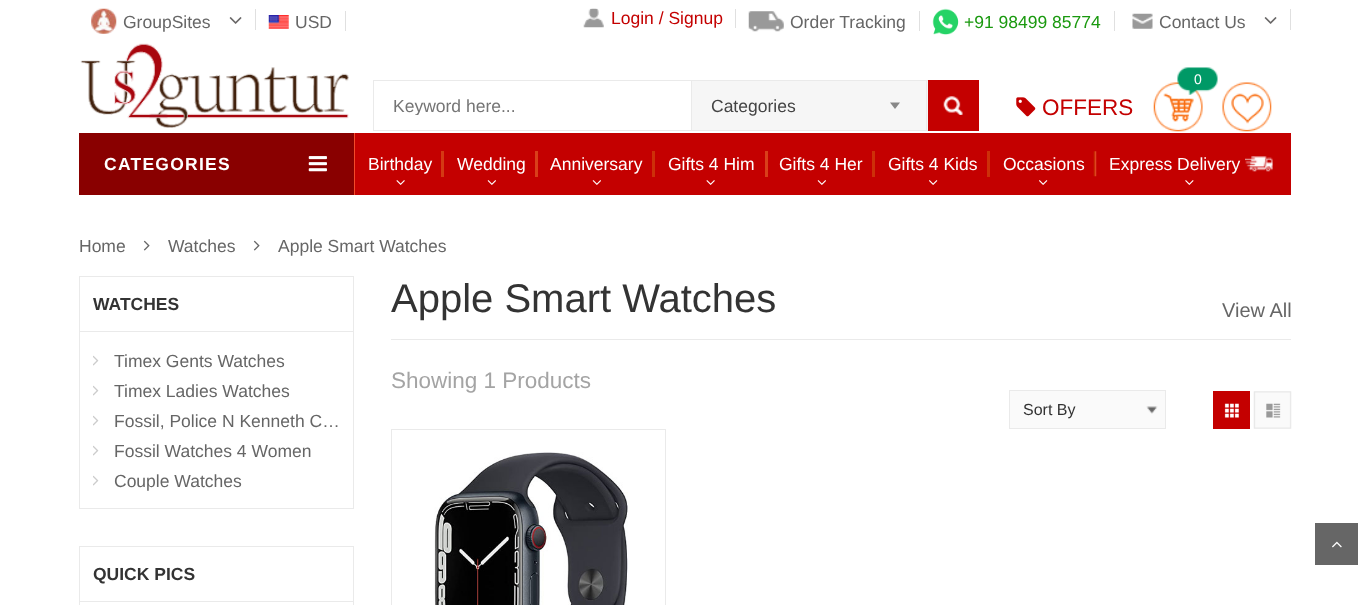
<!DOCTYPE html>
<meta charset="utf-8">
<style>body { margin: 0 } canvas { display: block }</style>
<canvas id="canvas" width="1370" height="605"></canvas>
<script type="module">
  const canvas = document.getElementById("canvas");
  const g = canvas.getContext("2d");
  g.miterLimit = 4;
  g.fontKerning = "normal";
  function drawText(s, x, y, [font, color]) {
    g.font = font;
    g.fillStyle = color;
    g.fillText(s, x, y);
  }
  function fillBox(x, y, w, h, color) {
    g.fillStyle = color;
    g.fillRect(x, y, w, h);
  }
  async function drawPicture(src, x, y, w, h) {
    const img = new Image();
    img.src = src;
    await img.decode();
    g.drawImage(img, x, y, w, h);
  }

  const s1 = ["17.5px Liberation Sans", "#666666"];
  const s2 = ["17.5px Liberation Sans", "#C40000"];
  const s3 = ["17.5px Liberation Sans", "#1A990F"];
  const s4 = ["17.5px Liberation Sans", "#757575"];
  const s5 = ["17.5px Liberation Sans", "#444444"];
  const s6 = ["14px Liberation Sans", "#FFFFFF"];
  const s7 = ["22.5px Liberation Sans", "#C40000"];
  const s8 = ["bold 17.5px Liberation Sans", "#FFFFFF"];
  const s9 = ["17.5px Liberation Sans", "#FFFFFF"];
  const s10 = ["bold 17.5px Liberation Sans", "#333333"];
  const s11 = ["40px Liberation Sans", "#333333"];
  const s12 = ["20px Liberation Sans", "#666666"];
  const s13 = ["22.5px Liberation Sans", "#A4A4A4"];
  const s14 = ["16px Liberation Sans", "#333333"];

  fillBox(0, 0, 1370, 605, "#FFFFFF");
  fillBox(255, 9, 1, 21, "#E0E0E0");
  await drawPicture("pic1.png", 91, 8, 26, 26);
  drawText("GroupSites", 123, 28, s1);
  await drawPicture("pic2.png", 229, 17, 13, 7);
  fillBox(345, 11, 1, 20, "#E0E0E0");
  await drawPicture("pic3.png", 268, 15, 21, 14);
  drawText("USD", 295, 28, s1);
  fillBox(735, 9, 1, 19, "#E0E0E0");
  await drawPicture("pic4.png", 583, 8, 21, 20);
  drawText("Login / Signup", 611, 24, s2);
  fillBox(919, 11, 1, 20, "#E0E0E0");
  await drawPicture("pic5.png", 748, 11, 36, 21);
  drawText("Order Tracking", 790, 28, s1);
  fillBox(1114, 11, 1, 20, "#E0E0E0");
  await drawPicture("pic6.png", 932, 8, 27, 27);
  drawText("+91 98499 85774", 964, 28, s3);
  fillBox(1290, 9, 1, 21, "#E0E0E0");
  await drawPicture("pic7.png", 1132, 13, 21, 16);
  drawText("Contact Us", 1159, 28, s1);
  await drawPicture("pic2.png", 1264, 17, 13, 7);
  await drawPicture("pic8.png", 80, 43, 269, 85);
  g.strokeStyle = "#EAEAEA";
  g.strokeRect(373.5, 80.5, 605, 50);
  g.save();
  g.beginPath();
  g.rect(393, 95, 210, 20);
  g.clip();
  drawText("Keyword here...", 393, 112, s4);
  g.restore();
  fillBox(692, 81, 236, 49, "#F6F6F6");
  fillBox(691, 81, 1, 49, "#EAEAEA");
  fillBox(926, 81, 1, 50, "#EAEAEA");
  drawText("Categories", 711, 112, s5);
  g.fillStyle = "#888888";
  g.beginPath();
  g.moveTo(890, 102.5);
  g.lineTo(900, 102.5);
  g.lineTo(895, 109);
  g.closePath();
  g.fill();
  fillBox(928, 80, 51, 51, "#C40000");
  await drawPicture("pic9.png", 943, 96, 20, 19);
  await drawPicture("pic10.png", 1153, 82, 50, 50);
  await drawPicture("pic11.png", 1177, 67, 41, 28);
  drawText("0", 1194, 84, s6);
  await drawPicture("pic12.png", 1016, 97, 20, 20);
  drawText("OFFERS", 1042, 115, s7);
  await drawPicture("pic13.png", 1222, 82, 50, 50);
  fillBox(79, 133, 275, 62, "#890000");
  g.letterSpacing = "1.25px";
  drawText("CATEGORIES", 104, 170, s8);
  await drawPicture("pic14.png", 308, 156, 19, 16);
  fillBox(355, 133, 936, 62, "#C40000");
  fillBox(354, 133, 1, 62, "#F44A2A");
  fillBox(441, 151, 3, 26, "#D43913");
  g.letterSpacing = "0px";
  drawText("Birthday", 368, 170, s9);
  await drawPicture("pic15.png", 396, 180, 9, 5);
  fillBox(535, 151, 3, 26, "#D93F1A");
  drawText("Wedding", 457, 170, s9);
  await drawPicture("pic16.png", 487, 180, 9, 5);
  fillBox(652, 151, 3, 26, "#CD3009");
  drawText("Anniversary", 550, 170, s9);
  await drawPicture("pic16.png", 592, 180, 9, 5);
  fillBox(765, 151, 3, 26, "#D93F1A");
  drawText("Gifts 4 Him", 668, 170, s9);
  await drawPicture("pic15.png", 706, 180, 9, 5);
  fillBox(872, 151, 3, 26, "#CD3009");
  drawText("Gifts 4 Her", 779, 170, s9);
  await drawPicture("pic16.png", 817, 180, 9, 5);
  fillBox(987, 151, 3, 26, "#CD3009");
  drawText("Gifts 4 Kids", 888, 170, s9);
  await drawPicture("pic17.png", 929, 180, 9, 5);
  await drawPicture("pic18.png", 1093, 151, 4, 26);
  drawText("Occasions", 1003, 170, s9);
  await drawPicture("pic17.png", 1039, 180, 9, 5);
  drawText("Express Delivery", 1109, 170, s9);
  await drawPicture("pic19.png", 1245, 156, 28, 16);
  await drawPicture("pic20.png", 1185, 180, 9, 5);
  drawText("Home", 79, 252, s1);
  await drawPicture("pic21.png", 143, 240, 7, 11);
  drawText("Watches", 168, 252, s1);
  await drawPicture("pic21.png", 253, 240, 7, 11);
  drawText("Apple Smart Watches", 278, 252, s1);
  g.strokeRect(79.5, 276.5, 274, 232);
  fillBox(80, 331, 273, 1, "#EAEAEA");
  drawText("WATCHES", 93, 310, s10);
  await drawPicture("pic22.png", 93, 355, 6, 11);
  drawText("Timex Gents Watches", 114, 367, s1);
  await drawPicture("pic22.png", 93, 385, 6, 11);
  drawText("Timex Ladies Watches", 114, 397, s1);
  await drawPicture("pic22.png", 93, 415, 6, 11);
  drawText("Fossil, Police N Kenneth C…", 114, 427, s1);
  await drawPicture("pic22.png", 93, 445, 6, 11);
  drawText("Fossil Watches 4 Women", 114, 457, s1);
  await drawPicture("pic22.png", 93, 475, 6, 11);
  drawText("Couple Watches", 114, 487, s1);
  g.strokeRect(79.5, 546.5, 274, 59);
  fillBox(80, 601, 273, 1, "#EAEAEA");
  drawText("QUICK PICS", 93, 580, s10);
  fillBox(391, 339, 900, 1, "#EAEAEA");
  drawText("Apple Smart Watches", 391, 312, s11);
  drawText("View All", 1222, 317, s12);
  drawText("Showing 1 Products", 391, 388, s13);
  g.strokeRect(1009.5, 390.5, 156, 38);
  fillBox(1010, 391, 155, 37, "#FAFAFA");
  await drawPicture("pic23.png", 1146, 406, 12, 8);
  drawText("Sort By", 1023, 415, s14);
  fillBox(1213, 391, 37, 38, "#C40000");
  await drawPicture("pic24.png", 1224, 403, 15, 15);
  await drawPicture("pic25.png", 1253, 391, 39, 38);
  g.strokeRect(391.5, 429.5, 274, 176);
  await drawPicture("pic26.png", 434, 452, 194, 153);
  fillBox(1315, 523, 43, 42, "#666666");
  await drawPicture("pic27.png", 1332, 541, 10, 7);
</script>
